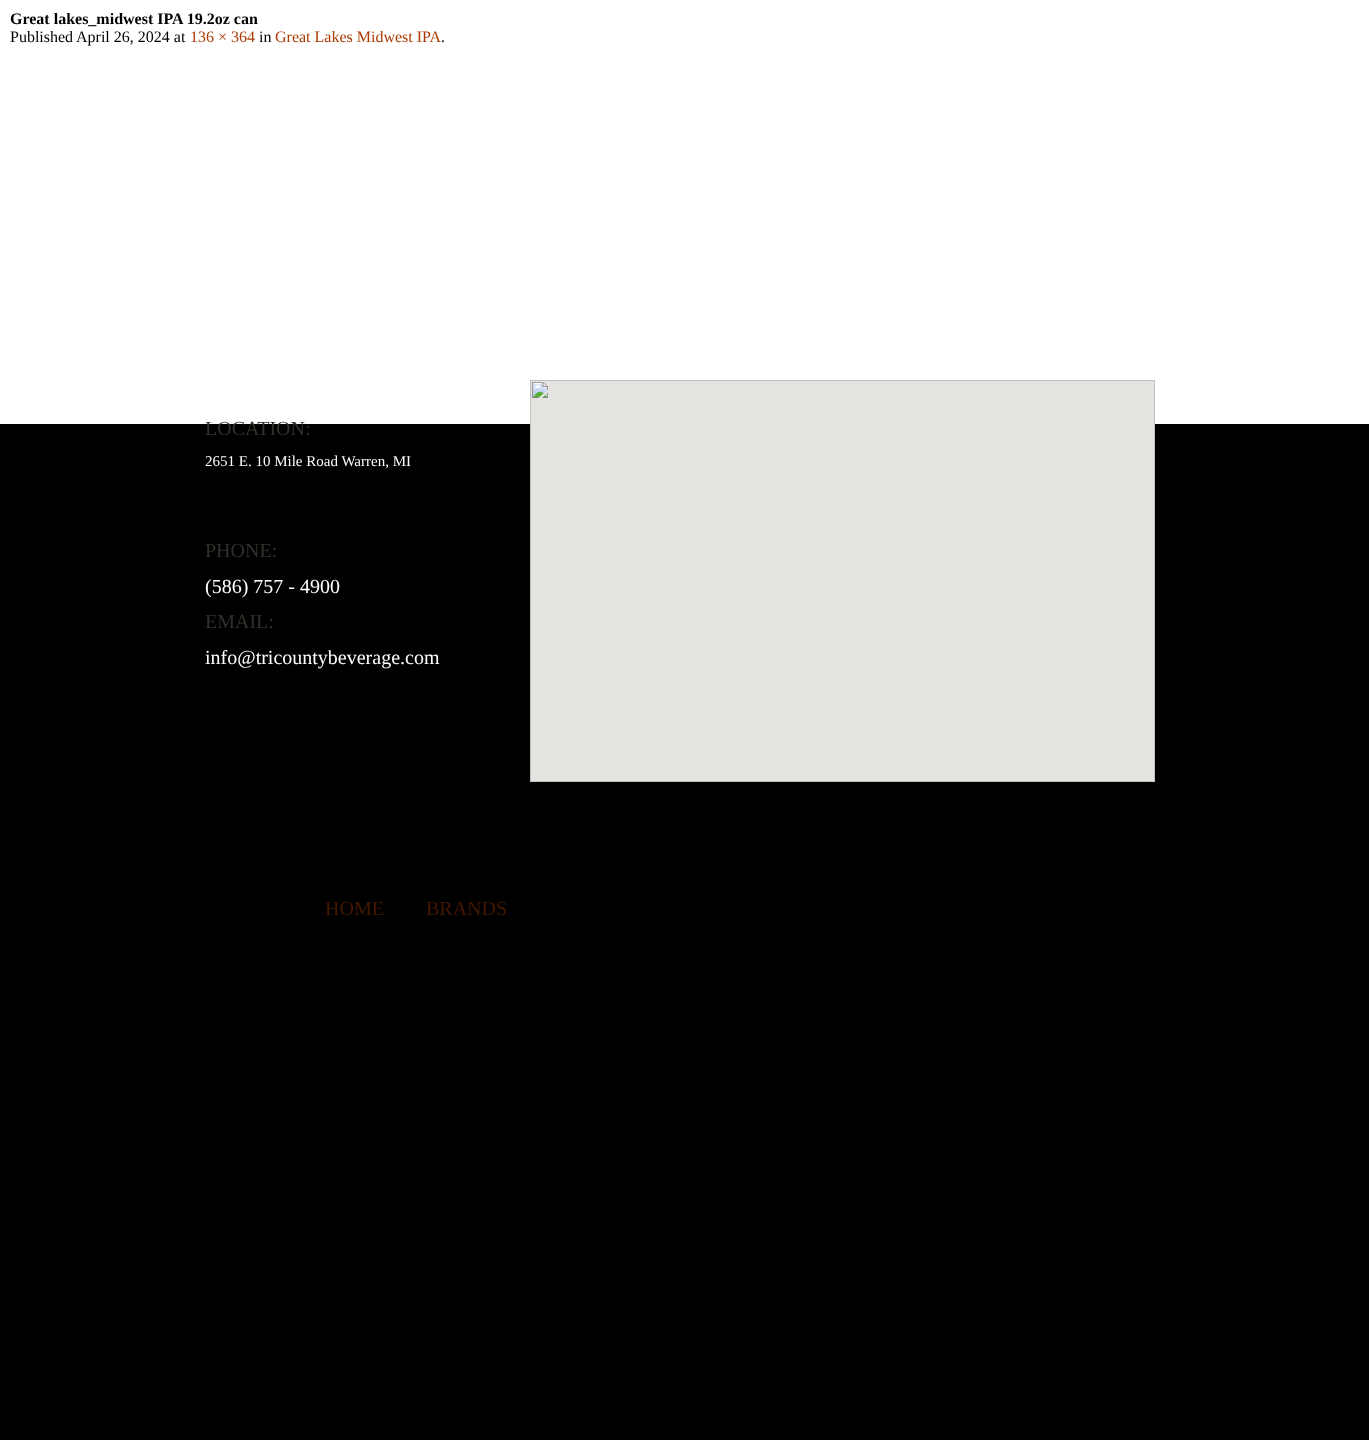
<!DOCTYPE html>
<meta charset="utf-8">
<style>body { margin: 0 } canvas { display: block }</style>
<canvas id="canvas" width="1369" height="1440"></canvas>
<script type="module">
  const canvas = document.getElementById("canvas");
  const g = canvas.getContext("2d");
  g.miterLimit = 4;
  g.fontKerning = "normal";
  function drawText(s, x, y, [font, color]) {
    g.font = font;
    g.fillStyle = color;
    g.fillText(s, x, y);
  }
  function fillBox(x, y, w, h, color) {
    g.fillStyle = color;
    g.fillRect(x, y, w, h);
  }
  async function drawPicture(src, x, y, w, h) {
    const img = new Image();
    img.src = src;
    await img.decode();
    g.drawImage(img, x, y, w, h);
  }

  const s1 = ["bold 16px Liberation Serif", "#000000"];
  const s2 = ["16px Liberation Serif", "#000000"];
  const s3 = ["16px Liberation Serif", "#AC3B04"];
  const s4 = ["20px Liberation Serif", "#32302B"];
  const s5 = ["15px Liberation Serif", "#FFFFFF"];
  const s6 = ["20px Liberation Serif", "#FFFFFF"];
  const s7 = ["20px Liberation Serif", "#431600"];

  fillBox(0, 0, 1369, 1440, "#000000");
  fillBox(0, 0, 1369, 424, "#FFFFFF");
  drawText("Great lakes_midwest IPA 19.2oz can", 10, 24, s1);
  drawText("Published", 10, 42, s2);
  drawText("April 26, 2024 at", 76, 42, s2);
  drawText("136 × 364", 190, 42, s3);
  drawText("in", 259, 42, s2);
  drawText("Great Lakes Midwest IPA", 275, 42, s3);
  drawText(".", 441, 42, s2);
  drawText("LOCATION:", 205, 435, s4);
  drawText("2651 E. 10 Mile Road Warren, MI", 205, 466, s5);
  drawText("PHONE:", 205, 557, s4);
  drawText("(586) 757 - 4900", 205, 593, s6);
  drawText("EMAIL:", 205, 628, s4);
  drawText("info@tricountybeverage.com", 205, 664, s6);
  await drawPicture("pic1.png", 530, 380, 625, 402);
  drawText("HOME", 325, 915, s7);
  drawText("BRANDS", 426, 915, s7);
</script>
